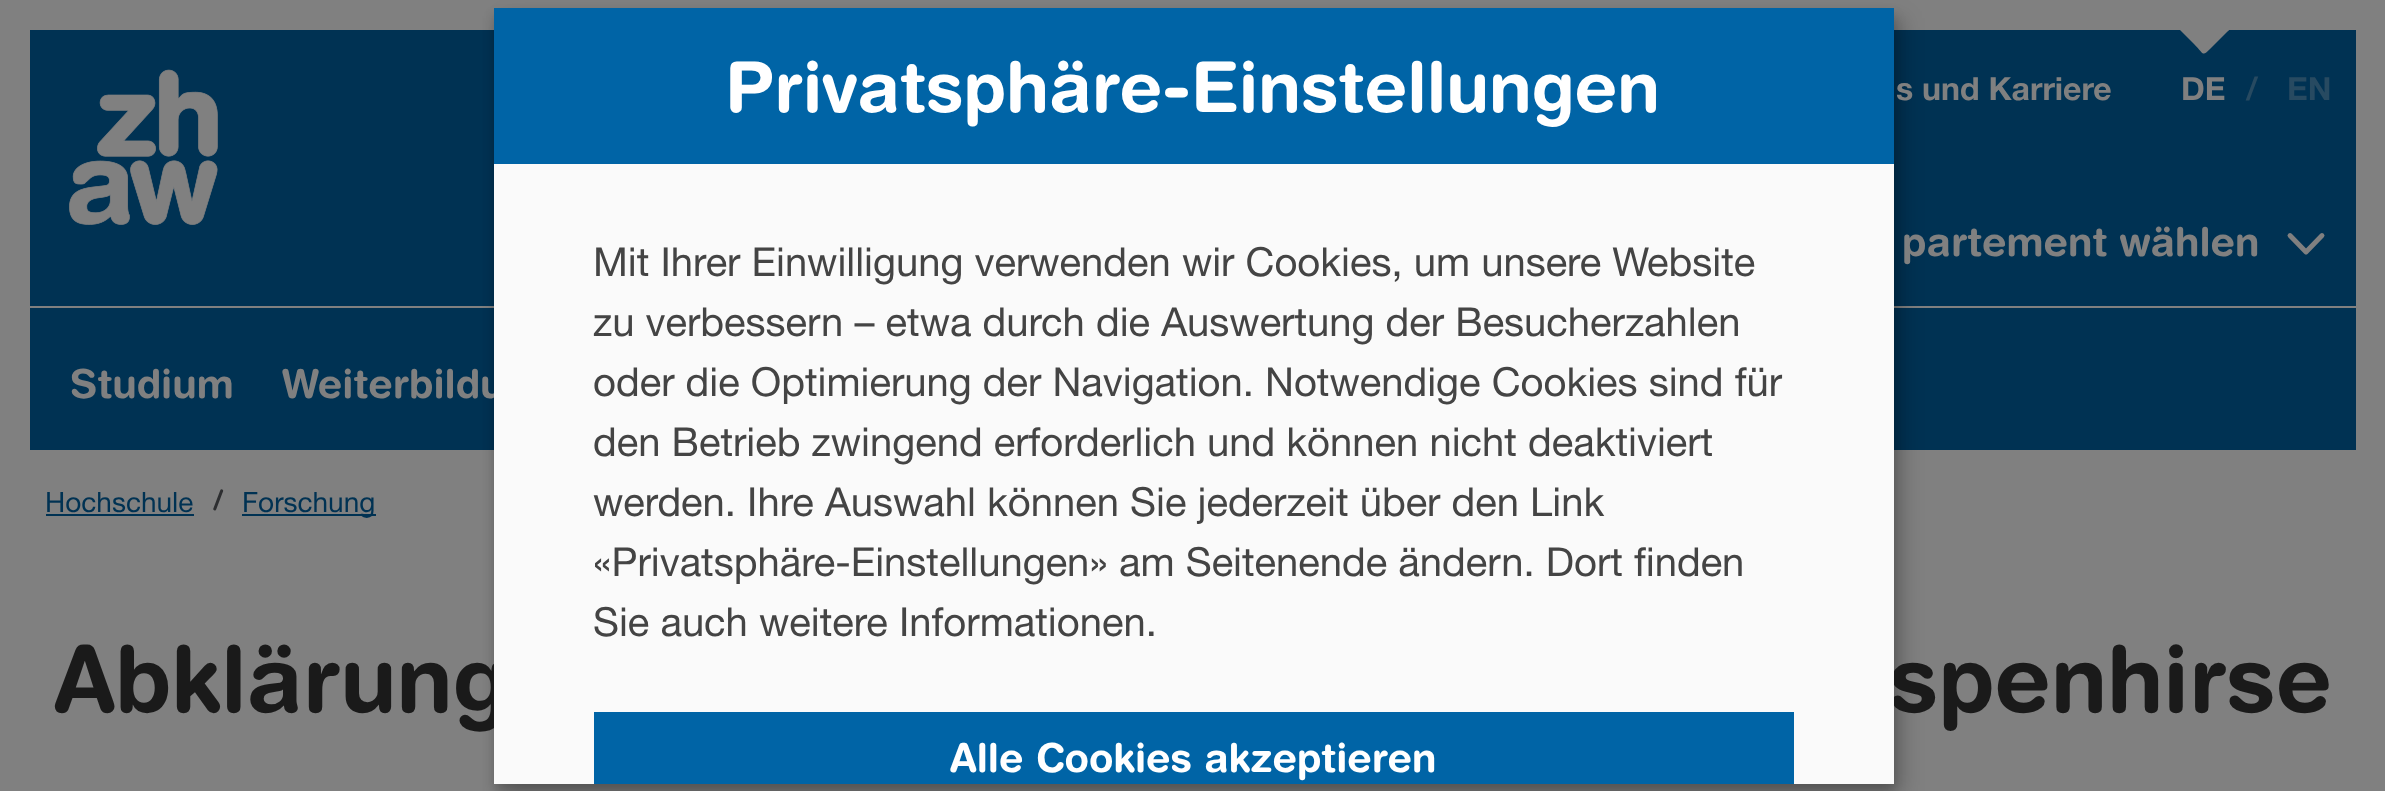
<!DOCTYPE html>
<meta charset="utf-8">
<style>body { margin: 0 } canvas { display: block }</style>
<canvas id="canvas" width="2385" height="791"></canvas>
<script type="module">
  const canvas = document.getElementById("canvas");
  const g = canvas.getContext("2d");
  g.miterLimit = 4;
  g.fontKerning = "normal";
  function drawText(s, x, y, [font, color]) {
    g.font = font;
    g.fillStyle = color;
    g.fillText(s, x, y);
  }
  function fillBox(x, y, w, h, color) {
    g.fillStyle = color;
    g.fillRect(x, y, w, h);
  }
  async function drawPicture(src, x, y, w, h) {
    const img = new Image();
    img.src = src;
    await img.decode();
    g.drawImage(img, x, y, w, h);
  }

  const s1 = ["bold 40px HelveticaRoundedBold", "#808080"];
  const s2 = ["bold 92px HelveticaRoundedBold", "#1A1A1A"];
  const s3 = ["bold 70px HelveticaRoundedBold", "#FFFFFF"];
  const s4 = ["40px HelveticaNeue", "#444444"];
  const s5 = ["bold 40px HelveticaRoundedBold", "#FFFFFF"];
  const s6 = ["bold 32px HelveticaNeue", "#808080"];
  const s7 = ["bold 32px HelveticaNeue", "#274A61"];
  const s8 = ["28px HelveticaNeue", "#003253"];
  const s9 = ["bold 28px HelveticaRoundedBold", "#2D2E30"];

  fillBox(0, 0, 2385, 791, "#808080");
  fillBox(30, 30, 2326, 420, "#003253");
  fillBox(30, 306, 2326, 2, "#808080");
  g.fillStyle = "rgba(0, 0, 0, 0.19)";
  g.filter = "blur(10px)";
  g.beginPath();
  g.rect(504, 18, 1400, 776);
  g.fill();
  g.filter = "none";
  g.fillStyle = "rgba(0, 0, 0, 0.2)";
  g.filter = "blur(6px)";
  g.beginPath();
  g.rect(494, 16, 1400, 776);
  g.fill();
  g.filter = "none";
  drawText("Weiterbildu", 282, 398, s1);
  drawText("Abklärung", 54, 712, s2);
  drawText("spenhirse", 1889, 712, s2);
  fillBox(494, 164, 1400, 620, "#FAFAFA");
  fillBox(494, 8, 1400, 156, "#0064A6");
  drawText("Privatsphäre-Einstellungen", 725, 112, s3);
  drawText("Mit Ihrer Einwilligung verwenden wir Cookies, um unsere Website", 593, 276, s4);
  drawText("zu verbessern – etwa durch die Auswertung der Besucherzahlen", 593, 336, s4);
  drawText("oder die Optimierung der Navigation. Notwendige Cookies sind für", 593, 396, s4);
  drawText("den Betrieb zwingend erforderlich und können nicht deaktiviert", 593, 456, s4);
  drawText("werden. Ihre Auswahl können Sie jederzeit über den Link", 593, 516, s4);
  drawText("«Privatsphäre-Einstellungen» am Seitenende ändern. Dort finden", 593, 576, s4);
  drawText("Sie auch weitere Informationen.", 593, 636, s4);
  fillBox(594, 712, 1200, 72, "#0064A6");
  drawText("Alle Cookies akzeptieren", 950, 772, s5);
  await drawPicture("pic1.png", 69, 69, 149, 156);
  drawText("s und Karriere", 1896, 100, s6);
  g.beginPath();
  g.moveTo(2231, 25);
  g.bezierCurveTo(2231, 24, 2230, 24, 2229, 24);
  g.lineTo(2187, 24);
  g.bezierCurveTo(2182, 24, 2175, 22, 2177, 27);
  g.lineTo(2194, 44);
  g.bezierCurveTo(2204, 54, 2202, 57, 2210, 49);
  g.lineTo(2227, 32);
  g.bezierCurveTo(2228, 31, 2232, 28, 2231, 25);
  g.closePath();
  g.fill();
  drawText("DE", 2181, 100, s6);
  drawText("/", 2246, 100, s7);
  drawText("EN", 2287, 100, s7);
  drawText("partement wählen", 1902, 256, s1);
  g.beginPath();
  g.moveTo(2322, 235.5);
  g.lineTo(2306, 252);
  g.lineTo(2290, 235.5);
  g.strokeStyle = "#808080";
  g.lineWidth = 4.9;
  g.lineCap = "round";
  g.lineJoin = "round";
  g.stroke();
  drawText("Studium", 70, 398, s1);
  drawText("Hochschule", 45, 512, s8);
  fillBox(46, 514, 148, 2, "#003253");
  drawText("/", 213, 510, s9);
  fillBox(242, 514, 134, 2, "#003253");
  drawText("Forschung", 242, 512, s8);
</script>
